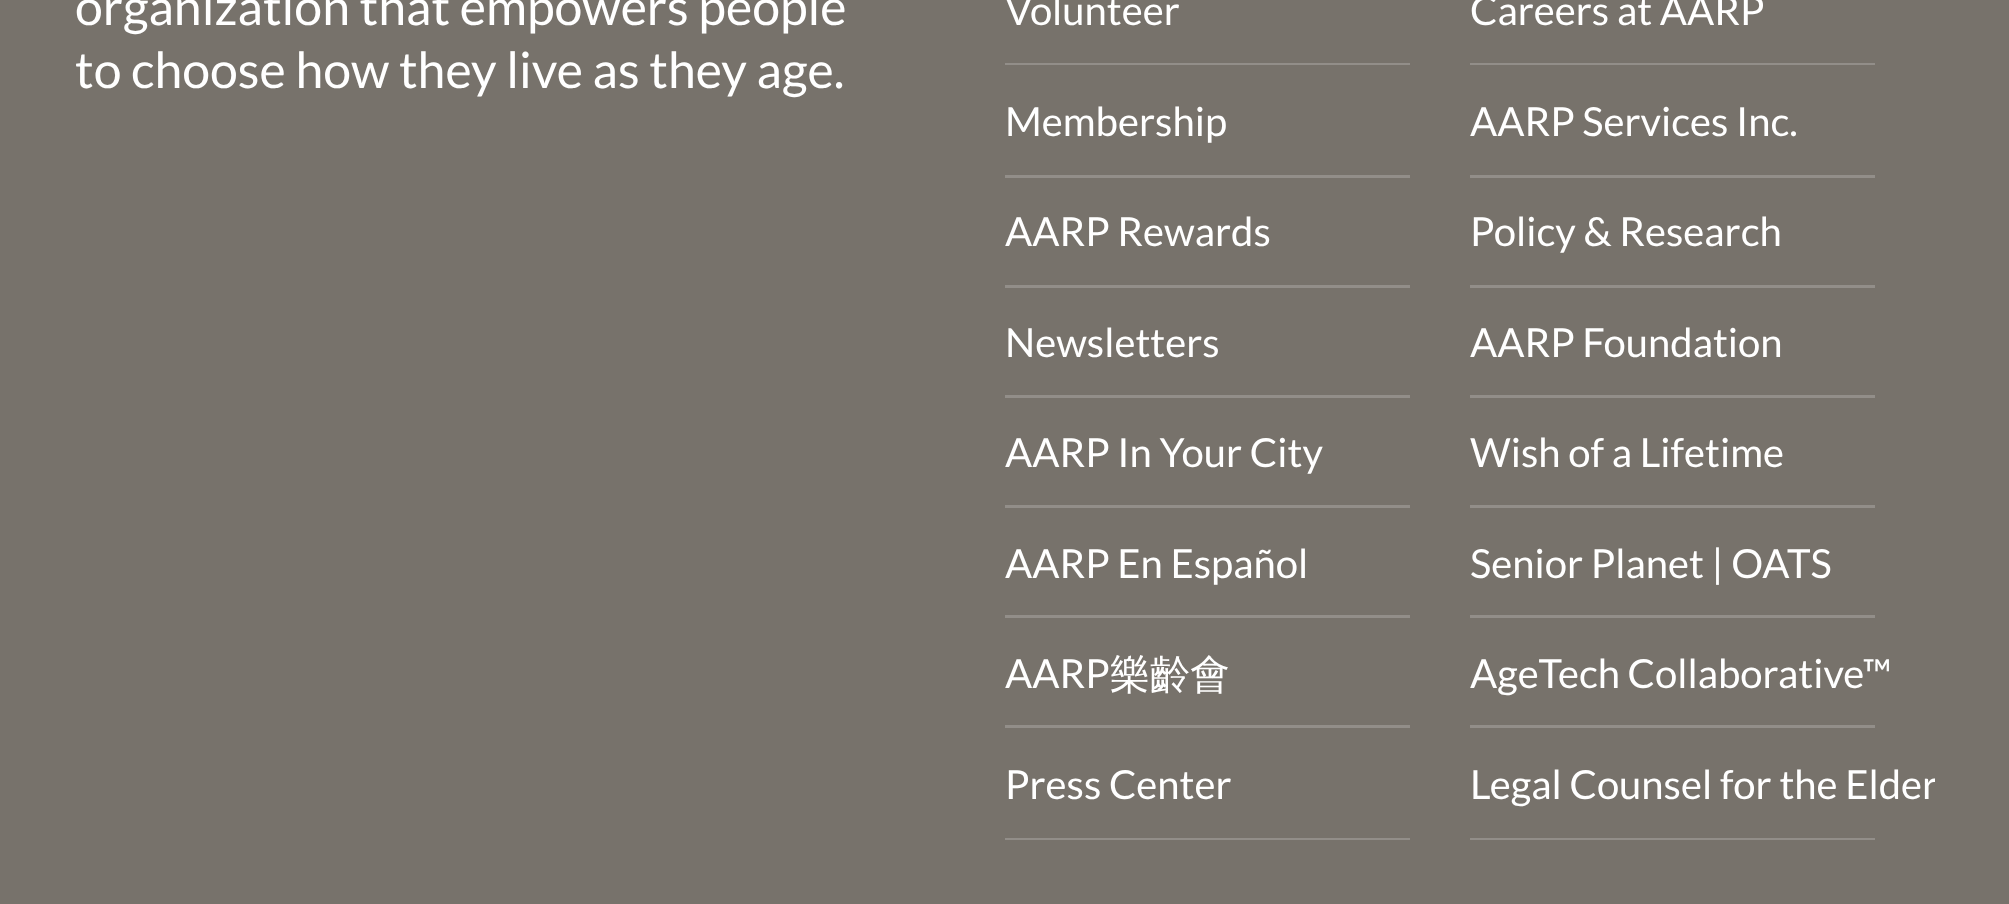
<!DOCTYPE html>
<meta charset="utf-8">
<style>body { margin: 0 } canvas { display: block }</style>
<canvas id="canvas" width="2009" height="904"></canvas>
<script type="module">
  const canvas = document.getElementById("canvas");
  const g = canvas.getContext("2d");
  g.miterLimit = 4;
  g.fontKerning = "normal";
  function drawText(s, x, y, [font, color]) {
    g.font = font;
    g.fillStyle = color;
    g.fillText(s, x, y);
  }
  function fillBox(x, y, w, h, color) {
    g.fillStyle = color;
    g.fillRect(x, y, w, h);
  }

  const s1 = ["50px Lato", "#FFFFFF"];
  const s2 = ["40px Lato", "#FFFFFF"];
  const s3 = ["500 40px WenQuanYi Zen Hei", "#FFFFFF"];

  fillBox(0, 0, 2009, 904, "#77726B");
  drawText("organization that empowers people", 75, 25, s1);
  drawText("to choose how they live as they age.", 75, 88, s1);
  fillBox(1005, 63, 405, 2, "#928E89");
  drawText("Volunteer", 1005, 25, s2);
  fillBox(1005, 175, 405, 3, "#928E89");
  drawText("Membership", 1005, 136, s2);
  fillBox(1005, 285, 405, 3, "#928E89");
  drawText("AARP Rewards", 1005, 246, s2);
  fillBox(1470, 63, 405, 2, "#928E89");
  drawText("Careers at AARP", 1470, 25, s2);
  fillBox(1470, 175, 405, 3, "#928E89");
  drawText("AARP Services Inc.", 1470, 136, s2);
  fillBox(1470, 285, 405, 3, "#928E89");
  drawText("Policy & Research", 1470, 246, s2);
  fillBox(1005, 395, 405, 3, "#928E89");
  drawText("Newsletters", 1005, 357, s2);
  fillBox(1005, 505, 405, 3, "#928E89");
  drawText("AARP In Your City", 1005, 467, s2);
  fillBox(1005, 615, 405, 3, "#928E89");
  drawText("AARP En Español", 1005, 578, s2);
  fillBox(1005, 725, 405, 3, "#928E89");
  drawText("AARP", 1005, 688, s2);
  drawText("樂齡會", 1110, 688, s3);
  fillBox(1005, 838, 405, 2, "#928E89");
  drawText("Press Center", 1005, 799, s2);
  fillBox(1470, 395, 405, 3, "#928E89");
  drawText("AARP Foundation", 1470, 357, s2);
  fillBox(1470, 505, 405, 3, "#928E89");
  drawText("Wish of a Lifetime", 1470, 467, s2);
  fillBox(1470, 615, 405, 3, "#928E89");
  drawText("Senior Planet | OATS", 1470, 578, s2);
  fillBox(1470, 725, 405, 3, "#928E89");
  drawText("AgeTech Collaborative™", 1470, 688, s2);
  fillBox(1470, 838, 405, 2, "#928E89");
  g.save();
  g.beginPath();
  g.rect(1470, 728, 465, 112);
  g.clip();
  drawText("Legal Counsel for the Elder", 1470, 799, s2);
  g.restore();
</script>
